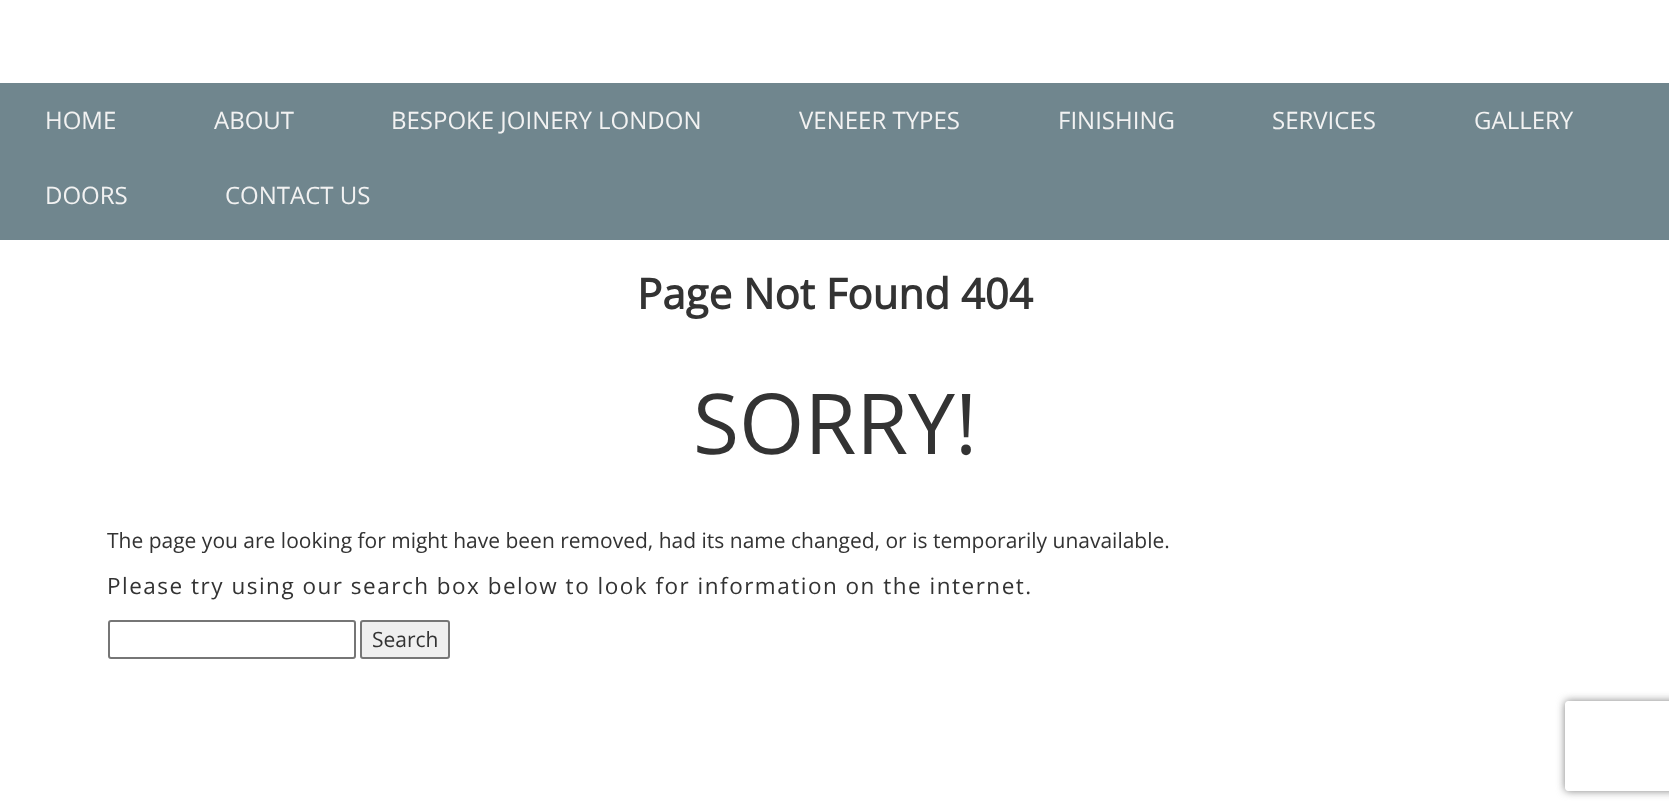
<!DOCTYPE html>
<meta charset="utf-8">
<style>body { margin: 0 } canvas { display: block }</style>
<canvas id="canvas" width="1669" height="811"></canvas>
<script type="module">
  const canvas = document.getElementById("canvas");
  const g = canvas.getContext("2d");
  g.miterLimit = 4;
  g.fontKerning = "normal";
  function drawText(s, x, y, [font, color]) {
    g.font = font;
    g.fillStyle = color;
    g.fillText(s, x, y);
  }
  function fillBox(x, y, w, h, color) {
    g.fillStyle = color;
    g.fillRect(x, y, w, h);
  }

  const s1 = ["24px Open Sans", "#F2F2F2"];
  const s2 = ["bold 42px Open Sans", "#333333"];
  const s3 = ["84px Open Sans", "#333333"];
  const s4 = ["21px Open Sans", "#333333"];
  const s5 = ["22.5px Open Sans", "#333333"];

  fillBox(0, 0, 1669, 811, "#FFFFFF");
  fillBox(0, 83, 1669, 157, "#70868E");
  drawText("HOME", 45, 129, s1);
  drawText("ABOUT", 214, 129, s1);
  drawText("BESPOKE JOINERY LONDON", 391, 129, s1);
  drawText("VENEER TYPES", 799, 129, s1);
  drawText("FINISHING", 1058, 129, s1);
  drawText("SERVICES", 1272, 129, s1);
  drawText("GALLERY", 1474, 129, s1);
  drawText("DOORS", 45, 204, s1);
  drawText("CONTACT US", 225, 204, s1);
  drawText("Page Not Found 404", 637, 309, s2);
  drawText("SORRY!", 693, 454, s3);
  drawText("The page you are looking for might have been removed, had its name changed, or is temporarily unavailable.", 107, 548, s4);
  g.letterSpacing = "1.5px";
  drawText("Please try using our search box below to look for information on the internet.", 107, 594, s5);
  g.beginPath();
  g.roundRect(109, 621, 246, 37, 2);
  g.strokeStyle = "#767676";
  g.lineWidth = 2;
  g.stroke();
  g.fillStyle = "#EFEFEF";
  g.beginPath();
  g.roundRect(361, 621, 88, 37, 2);
  g.fill();
  g.stroke();
  g.letterSpacing = "0px";
  drawText("Search", 372, 647, s4);
  g.save();
  g.beginPath();
  g.moveTo(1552, 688);
  g.lineTo(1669, 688);
  g.lineTo(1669, 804);
  g.lineTo(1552, 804);
  g.closePath();
  g.moveTo(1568, 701);
  g.lineTo(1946, 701);
  g.bezierCurveTo(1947.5, 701, 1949, 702.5, 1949, 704);
  g.lineTo(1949, 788);
  g.bezierCurveTo(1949, 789.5, 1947.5, 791, 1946, 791);
  g.lineTo(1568, 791);
  g.bezierCurveTo(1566.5, 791, 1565, 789.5, 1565, 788);
  g.lineTo(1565, 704);
  g.bezierCurveTo(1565, 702.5, 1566.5, 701, 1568, 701);
  g.closePath();
  g.clip("evenodd");
  g.fillStyle = "#808080";
  g.filter = "blur(4px)";
  g.beginPath();
  g.roundRect(1565, 701, 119, 90, 3);
  g.fill();
  g.filter = "none";
  g.restore();
</script>
